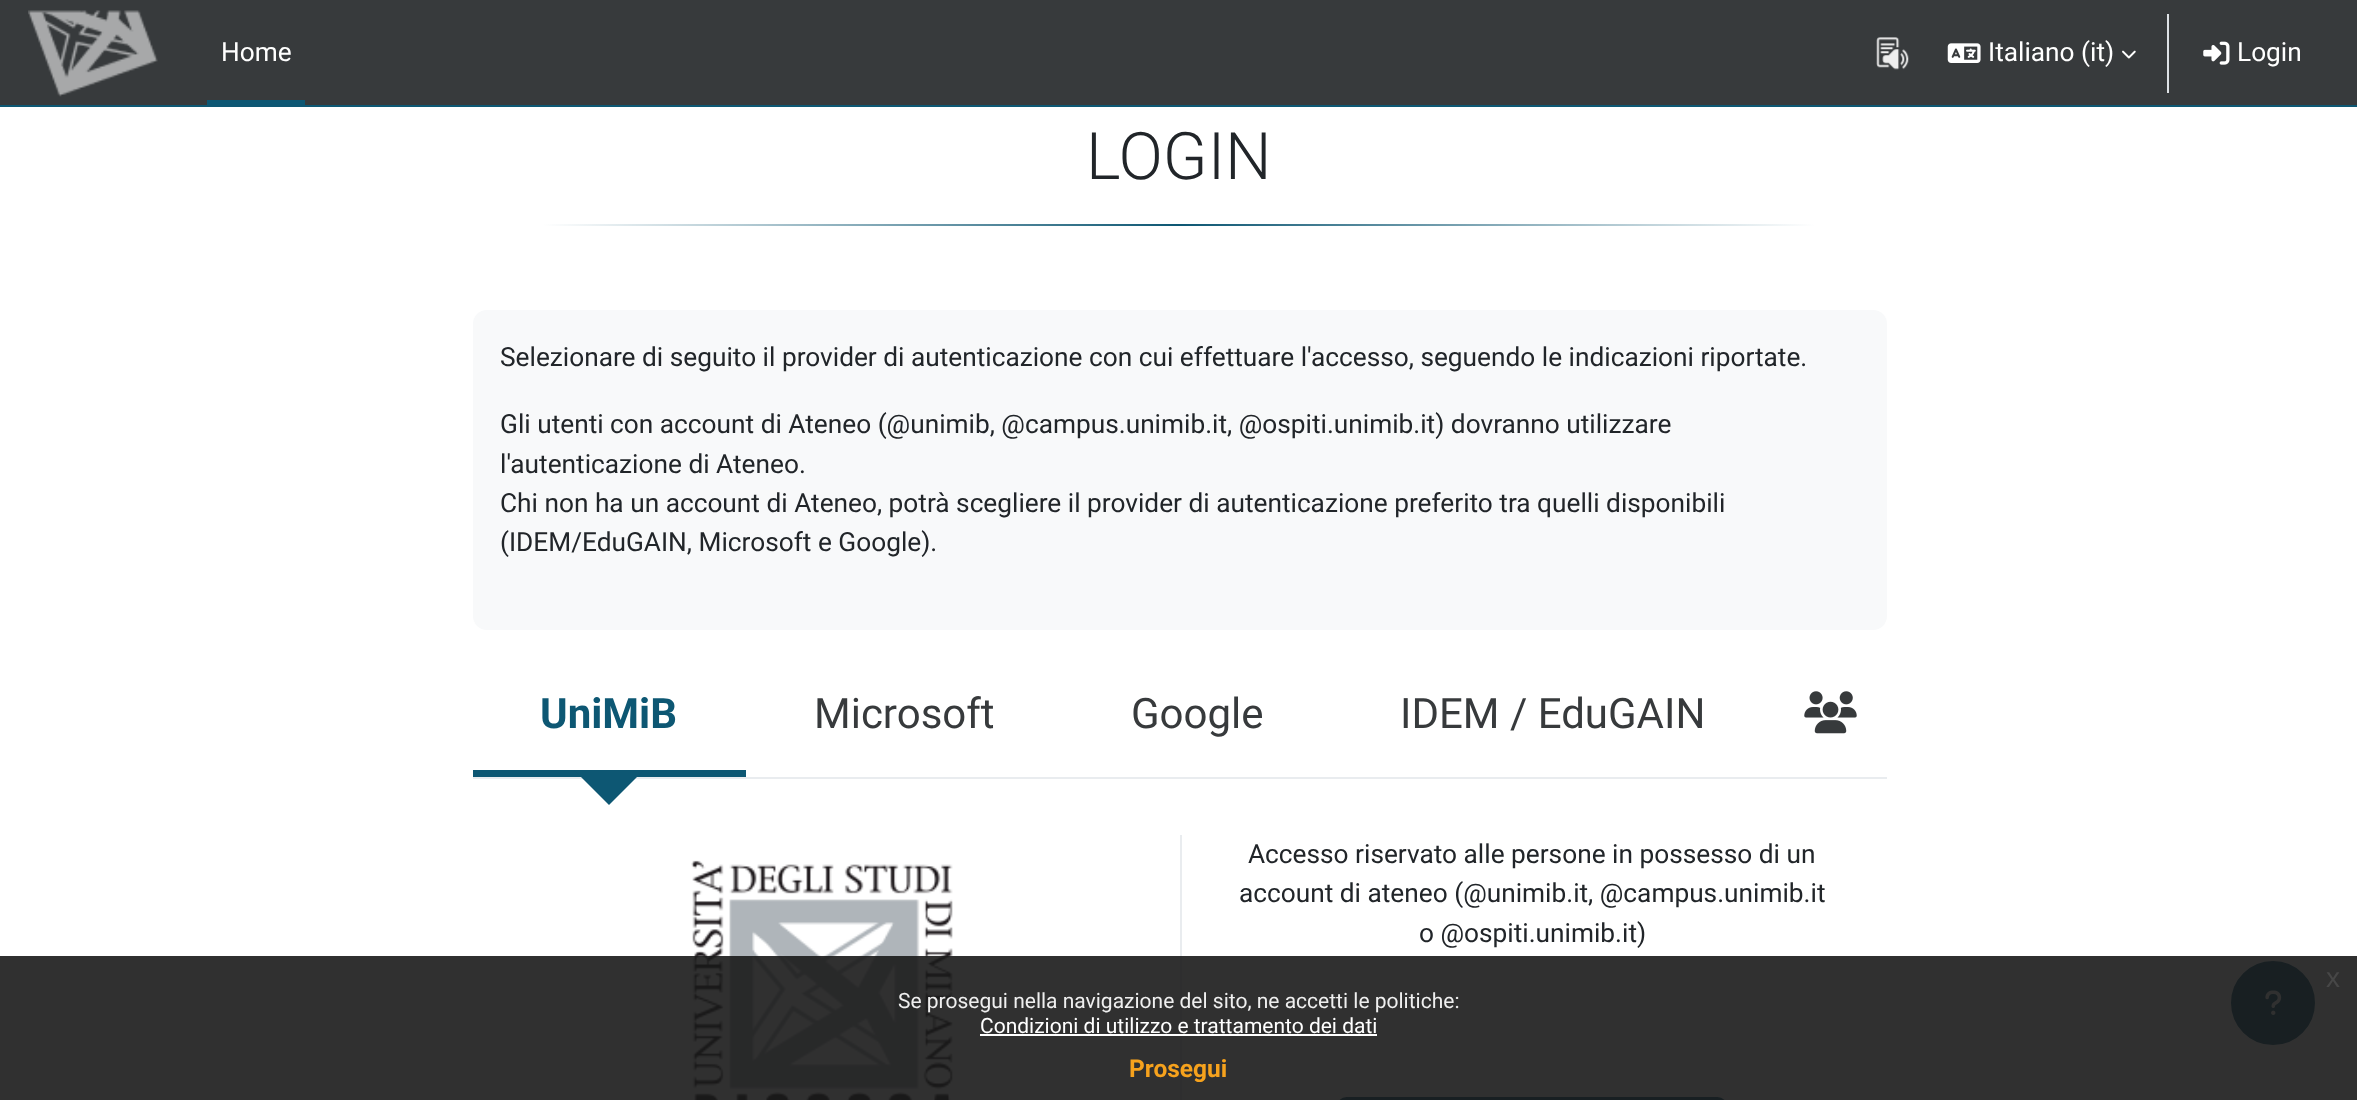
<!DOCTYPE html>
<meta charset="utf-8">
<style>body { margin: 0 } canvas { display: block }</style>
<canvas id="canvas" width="2357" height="1100"></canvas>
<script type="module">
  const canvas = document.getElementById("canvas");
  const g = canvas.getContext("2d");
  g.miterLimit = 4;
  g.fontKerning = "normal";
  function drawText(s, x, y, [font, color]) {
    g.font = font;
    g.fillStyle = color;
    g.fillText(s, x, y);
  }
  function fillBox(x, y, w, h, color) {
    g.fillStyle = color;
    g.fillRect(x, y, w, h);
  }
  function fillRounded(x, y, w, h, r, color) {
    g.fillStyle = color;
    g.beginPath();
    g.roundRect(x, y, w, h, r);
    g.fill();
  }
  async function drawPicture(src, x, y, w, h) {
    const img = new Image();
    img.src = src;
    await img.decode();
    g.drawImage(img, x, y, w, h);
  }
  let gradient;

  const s1 = ["26.25px Roboto", "#FFFFFF"];
  const s2 = ["300 65.5px Roboto", "#212529"];
  const s3 = ["26.25px Roboto", "#212529"];
  const s4 = ["bold 42px Roboto", "#0D5773"];
  const s5 = ["42px Roboto", "#373A3C"];
  const s6 = ["28px Liberation Sans", "#474747"];
  const s7 = ["21px Roboto", "#EFEFEF"];
  const s8 = ["21px Roboto", "#FFFFFF"];
  const s9 = ["bold 24.5px Roboto", "#F6A21D"];

  fillBox(0, 0, 2357, 1100, "#FFFFFF");
  fillBox(0, 0, 2357, 105, "#373A3C");
  fillBox(0, 105, 2357, 2, "#0D5773");
  await drawPicture("pic1.png", 28, 10, 130, 87);
  fillBox(207, 100, 98, 5, "#0D5773");
  drawText("Home", 221, 61, s1);
  await drawPicture("pic2.png", 1876, 37, 33, 33);
  await drawPicture("pic3.png", 1947, 43, 34, 20);
  drawText("Italiano (it)", 1988, 61, s1);
  await drawPicture("pic4.png", 2122, 50, 14, 9);
  fillBox(2167, 14, 2, 79, "#DEE2E6");
  await drawPicture("pic5.png", 2203, 41, 27, 24);
  drawText("Login", 2237, 61, s1);
  drawText("LOGIN", 1086, 179, s2);
  gradient = g.createLinearGradient(543, 225, 1815, 225);
  gradient.addColorStop(0, "#FFFFFF");
  gradient.addColorStop(0.5, "#0D5773");
  gradient.addColorStop(1, "#FFFFFF");
  g.fillStyle = gradient;
  g.fillRect(543, 224, 1272, 2);
  fillRounded(473, 310, 1414, 320, 14, "#F8F9FA");
  drawText("Selezionare di seguito il provider di autenticazione con cui effettuare l'accesso, seguendo le indicazioni riportate.", 500, 366, s3);
  drawText("Gli utenti con account di Ateneo (@unimib, @campus.unimib.it, @ospiti.unimib.it) dovranno utilizzare", 500, 433, s3);
  drawText("l'autenticazione di Ateneo.", 500, 473, s3);
  drawText("Chi non ha un account di Ateneo, potrà scegliere il provider di autenticazione preferito tra quelli disponibili", 500, 512, s3);
  drawText("(IDEM/EduGAIN, Microsoft e Google).", 500, 551, s3);
  fillBox(473, 777, 1414, 2, "#E9ECEF");
  fillBox(473, 770, 273, 7, "#0D5773");
  drawText("UniMiB", 540, 728, s4);
  g.beginPath();
  g.moveTo(574, 770);
  g.lineTo(644, 770);
  g.lineTo(609, 805);
  g.closePath();
  g.fill();
  drawText("Microsoft", 814, 728, s5);
  drawText("Google", 1131, 728, s5);
  drawText("IDEM / EduGAIN", 1400, 728, s5);
  await drawPicture("pic6.png", 1804, 691, 53, 43);
  await drawPicture("pic7.png", 691, 860, 262, 240);
  fillBox(1180, 835, 2, 265, "#E9ECEF");
  drawText("Accesso riservato alle persone in possesso di un", 1248, 863, s3);
  drawText("account di ateneo (@unimib.it, @campus.unimib.it", 1239, 902, s3);
  drawText("o @ospiti.unimib.it)", 1419, 942, s3);
  g.fillStyle = "#0D5773";
  g.beginPath();
  g.roundRect(1338, 1098, 388, 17, 13);
  g.fill();
  g.strokeStyle = "#0D5773";
  g.lineWidth = 2;
  g.stroke();
  g.beginPath();
  g.arc(2273, 1003, 41, 0, Math.PI * 2);
  g.fill();
  g.stroke();
  await drawPicture("pic8.png", 2265, 990, 17, 25);
  fillBox(0, 956, 2357, 144, "rgba(25, 25, 25, 0.9)");
  drawText("x", 2326, 987, s6);
  drawText("Se prosegui nella navigazione del sito, ne accetti le politiche:", 898, 1008, s7);
  drawText("Condizioni di utilizzo e trattamento dei dati", 980, 1033, s8);
  fillBox(980, 1034, 397, 2, "#FFFFFF");
  drawText("Prosegui", 1129, 1077, s9);
</script>
